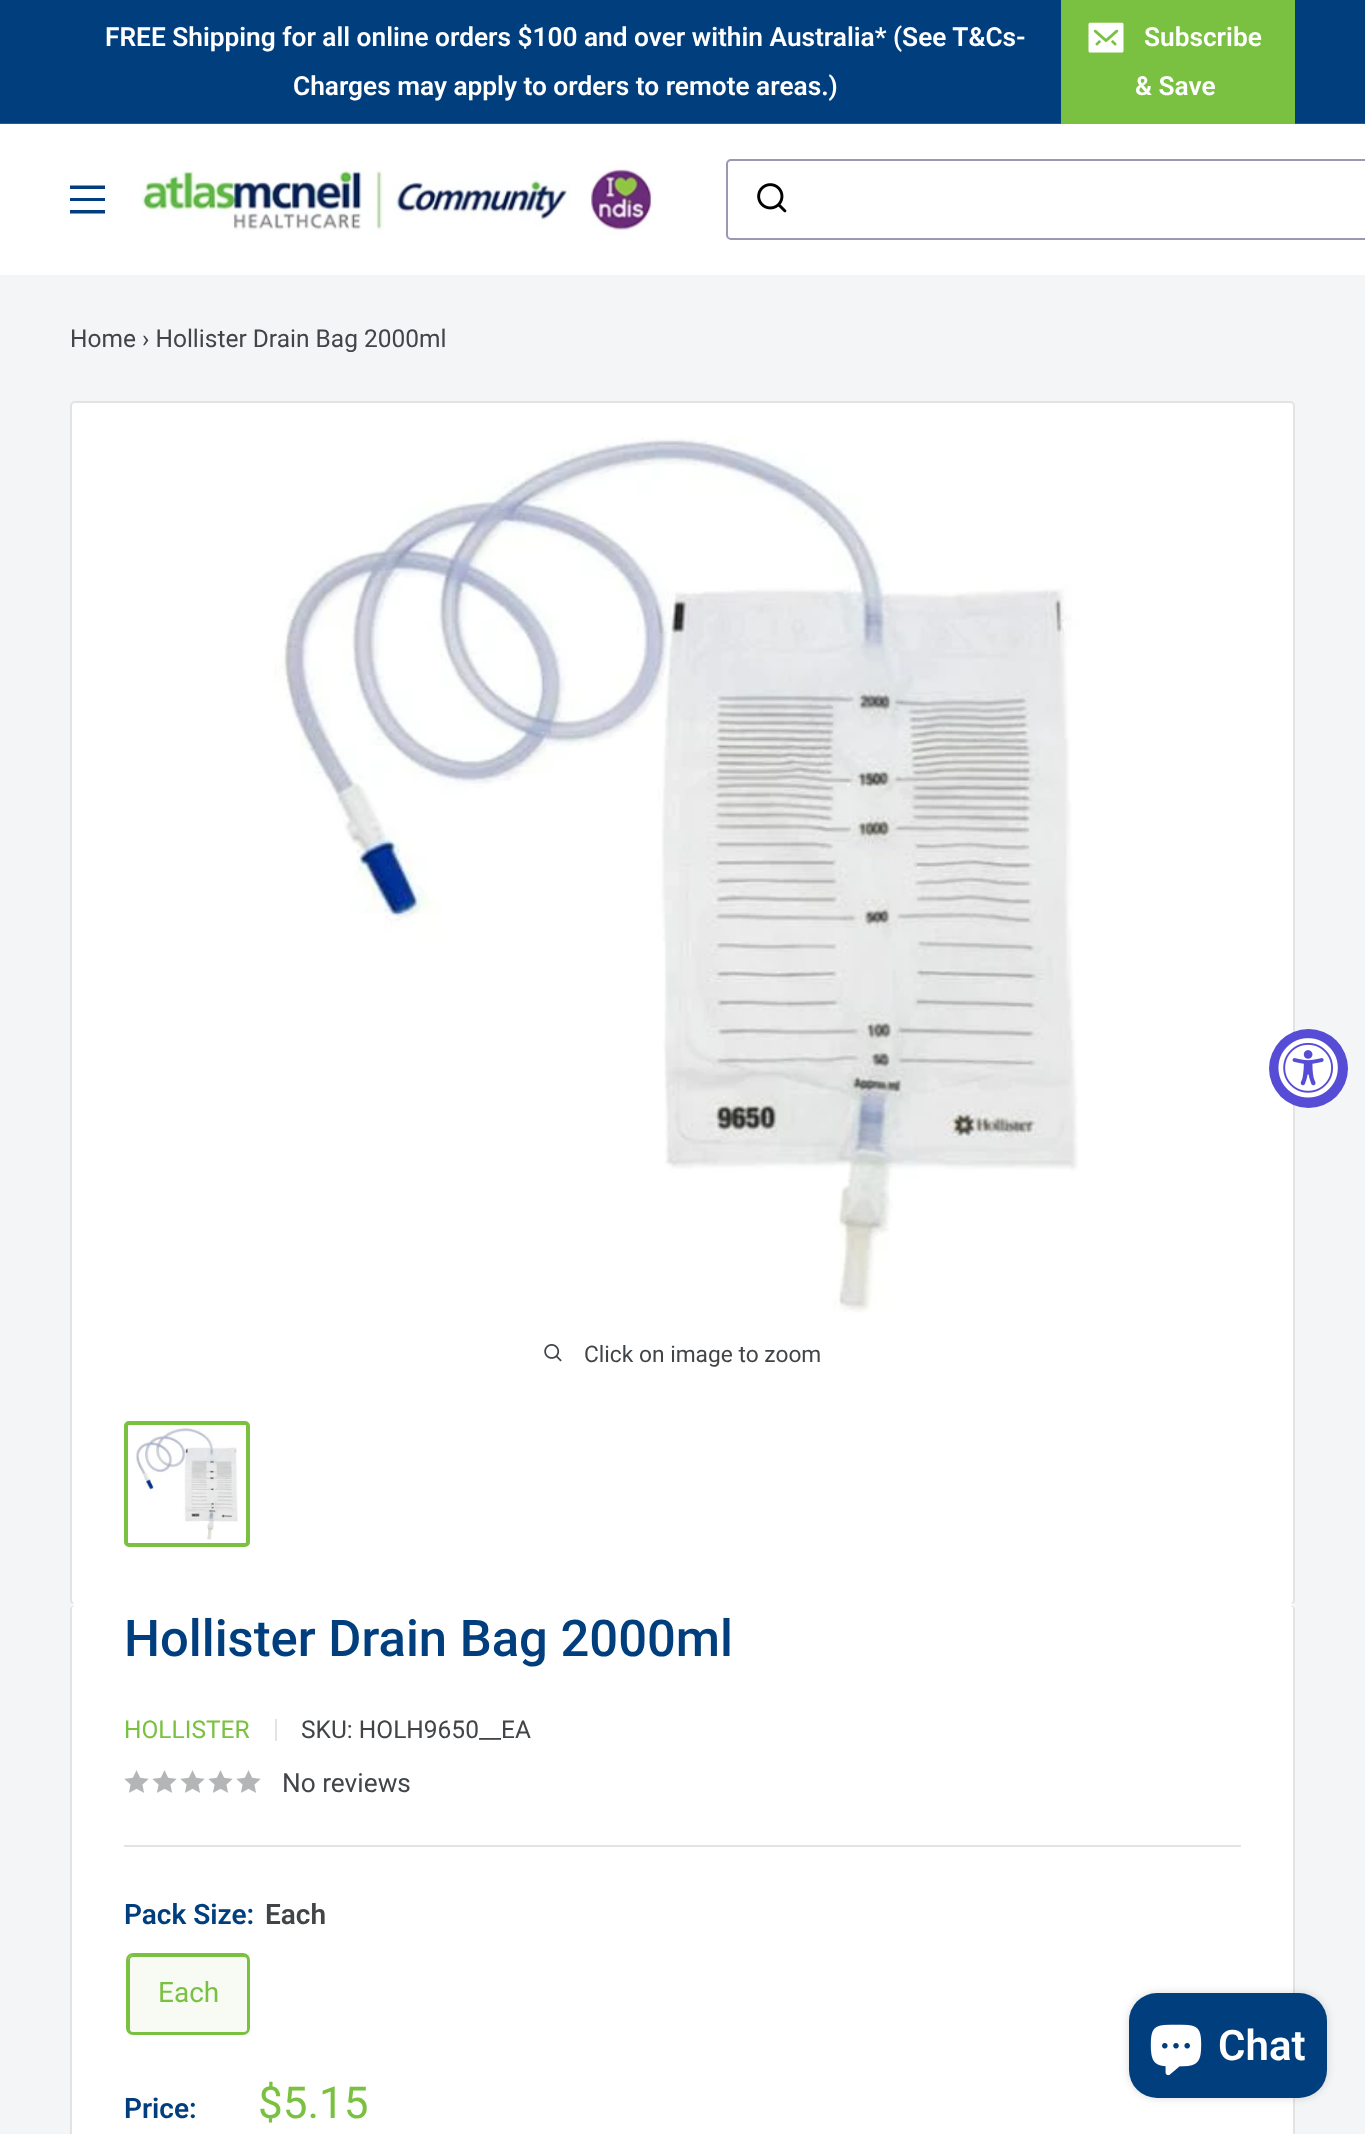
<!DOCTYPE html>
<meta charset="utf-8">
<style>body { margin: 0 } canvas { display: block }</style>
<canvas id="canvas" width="1365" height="2134"></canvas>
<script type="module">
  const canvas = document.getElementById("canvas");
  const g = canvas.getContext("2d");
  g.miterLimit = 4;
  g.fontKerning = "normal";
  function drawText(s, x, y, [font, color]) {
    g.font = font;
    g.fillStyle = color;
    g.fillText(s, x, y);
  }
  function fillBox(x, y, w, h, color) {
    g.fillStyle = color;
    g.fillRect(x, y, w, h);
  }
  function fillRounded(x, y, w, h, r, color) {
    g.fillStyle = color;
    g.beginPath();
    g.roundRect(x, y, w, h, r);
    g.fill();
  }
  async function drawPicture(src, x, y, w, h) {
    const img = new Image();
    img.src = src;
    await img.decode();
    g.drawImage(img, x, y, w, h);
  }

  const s1 = ["600 26.25px Roboto", "#FFFFFF"];
  const s2 = ["24.5px Roboto", "#424548"];
  const s3 = ["22.75px Roboto", "#424548"];
  const s4 = ["500 50.75px Roboto", "#003E7E"];
  const s5 = ["24.5px Roboto", "#7AC142"];
  const s6 = ["26.25px Roboto", "#424548"];
  const s7 = ["600 28px Roboto", "#003E7E"];
  const s8 = ["600 28px Roboto", "#424548"];
  const s9 = ["28px Roboto", "#7AC142"];
  const s10 = ["44px Roboto", "#7AC142"];
  const s11 = ["600 42px Roboto", "#FFFFFF"];

  fillBox(0, 0, 1365, 2134, "#F3F5F6");
  fillBox(0, 0, 1365, 123, "#003E7E");
  fillBox(0, 123, 1365, 1, "#25656C");
  drawText("FREE Shipping for all online orders $100 and over within Australia* (See T&Cs-", 105, 46, s1);
  drawText("Charges may apply to orders to remote areas.)", 293, 95, s1);
  fillBox(1061, 0, 234, 124, "#7AC142");
  await drawPicture("pic1.png", 1088, 22, 36, 31);
  drawText("Subscribe", 1144, 46, s1);
  drawText("& Save", 1135, 95, s1);
  fillBox(0, 124, 1365, 151, "#FFFFFF");
  g.fillStyle = "#003E7E";
  g.beginPath();
  g.moveTo(70, 210);
  g.lineTo(105, 210);
  g.lineTo(105, 213.5);
  g.lineTo(70, 213.5);
  g.closePath();
  g.moveTo(70, 185.5);
  g.lineTo(105, 185.5);
  g.lineTo(105, 189);
  g.lineTo(70, 189);
  g.closePath();
  g.moveTo(70, 198);
  g.lineTo(105, 198);
  g.lineTo(105, 201);
  g.lineTo(70, 201);
  g.closePath();
  g.fill("evenodd");
  await drawPicture("pic2.png", 140, 164, 513, 72);
  g.beginPath();
  g.roundRect(727, 160, 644, 79, 4);
  g.strokeStyle = "#9998B5";
  g.lineWidth = 2;
  g.stroke();
  await drawPicture("pic3.png", 757, 183, 30, 30);
  drawText("Home › Hollister Drain Bag 2000ml", 70, 347, s2);
  g.fillStyle = "#FFFFFF";
  g.beginPath();
  g.roundRect(71, 402, 1223, 1202, 4);
  g.fill();
  g.strokeStyle = "#E1E3E4";
  g.stroke();
  await drawPicture("pic4.png", 274, 437, 804, 876);
  await drawPicture("pic5.png", 544, 1344, 18, 18);
  drawText("Click on image to zoom", 584, 1362, s3);
  g.beginPath();
  g.roundRect(126, 1423, 122, 122, 3);
  g.strokeStyle = "#7AC142";
  g.lineWidth = 4;
  g.stroke();
  await drawPicture("pic6.png", 135, 1428, 103, 112);
  g.fillStyle = "#FFFFFF";
  g.beginPath();
  g.moveTo(75, 1603);
  g.bezierCurveTo(71, 1603, 70, 1607, 70, 1610);
  g.bezierCurveTo(70, 1607, 72, 1605, 75, 1605);
  g.lineTo(1290, 1605);
  g.bezierCurveTo(1293, 1605, 1295, 1607, 1295, 1610);
  g.bezierCurveTo(1295, 1607, 1294, 1603, 1290, 1603);
  g.closePath();
  g.fill();
  fillRounded(70, 1605, 1225, 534, 5, "#FFFFFF");
  g.fillStyle = "#E1E3E4";
  g.beginPath();
  g.moveTo(75, 1605);
  g.lineTo(1290, 1605);
  g.bezierCurveTo(1293, 1605, 1295, 1607, 1295, 1610);
  g.lineTo(1295, 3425);
  g.bezierCurveTo(1295, 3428, 1293, 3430, 1290, 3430);
  g.lineTo(75, 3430);
  g.bezierCurveTo(72, 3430, 70, 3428, 70, 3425);
  g.lineTo(70, 1610);
  g.bezierCurveTo(70, 1607, 72, 1605, 75, 1605);
  g.closePath();
  g.moveTo(75, 1605);
  g.lineTo(1290, 1605);
  g.bezierCurveTo(1292, 1605, 1293, 1607, 1293, 1610);
  g.lineTo(1293, 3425);
  g.bezierCurveTo(1293, 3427, 1292, 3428, 1290, 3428);
  g.lineTo(75, 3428);
  g.bezierCurveTo(73, 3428, 72, 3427, 72, 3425);
  g.lineTo(72, 1610);
  g.bezierCurveTo(72, 1607, 73, 1605, 75, 1605);
  g.closePath();
  g.fill("evenodd");
  drawText("Hollister Drain Bag 2000ml", 124, 1656, s4);
  drawText("HOLLISTER", 124, 1738, s5);
  fillBox(275, 1719, 2, 22, "#E1E3E4");
  drawText("SKU: HOLH9650__EA", 301, 1738, s2);
  await drawPicture("pic7.png", 124, 1770, 25, 23);
  await drawPicture("pic7.png", 152, 1770, 25, 23);
  await drawPicture("pic7.png", 180, 1770, 25, 23);
  await drawPicture("pic7.png", 208, 1770, 25, 23);
  await drawPicture("pic7.png", 236, 1770, 25, 23);
  drawText("No reviews", 282, 1792, s6);
  fillBox(124, 1845, 1117, 2, "#E1E3E4");
  drawText("Pack Size:", 124, 1924, s7);
  drawText("Each", 265, 1924, s8);
  g.beginPath();
  g.roundRect(127, 1954, 122, 80, 6);
  g.lineWidth = 2;
  g.stroke();
  fillBox(128, 1955, 121, 79, "rgba(122, 193, 66, 0.06)");
  g.beginPath();
  g.roundRect(129, 1956, 119, 77, 4);
  g.stroke();
  drawText("Each", 158, 2002, s9);
  drawText("Price:", 124, 2118, s7);
  drawText("$5.15", 258, 2118, s10);
  g.fillStyle = "#574CD5";
  g.beginPath();
  g.arc(1308.5, 1068.5, 39.5, 0, Math.PI * 2);
  g.fill();
  await drawPicture("pic8.png", 1278, 1038, 60, 60);
  g.fillStyle = "rgba(0, 0, 0, 0.15)";
  g.filter = "blur(4.5px)";
  g.beginPath();
  g.roundRect(1129, 1993, 198, 105, 28);
  g.fill();
  g.filter = "none";
  fillRounded(1129, 1993, 198, 105, 28, "#003E7E");
  await drawPicture("pic9.png", 1150, 2024, 52, 52);
  drawText("Chat", 1218, 2060, s11);
</script>
